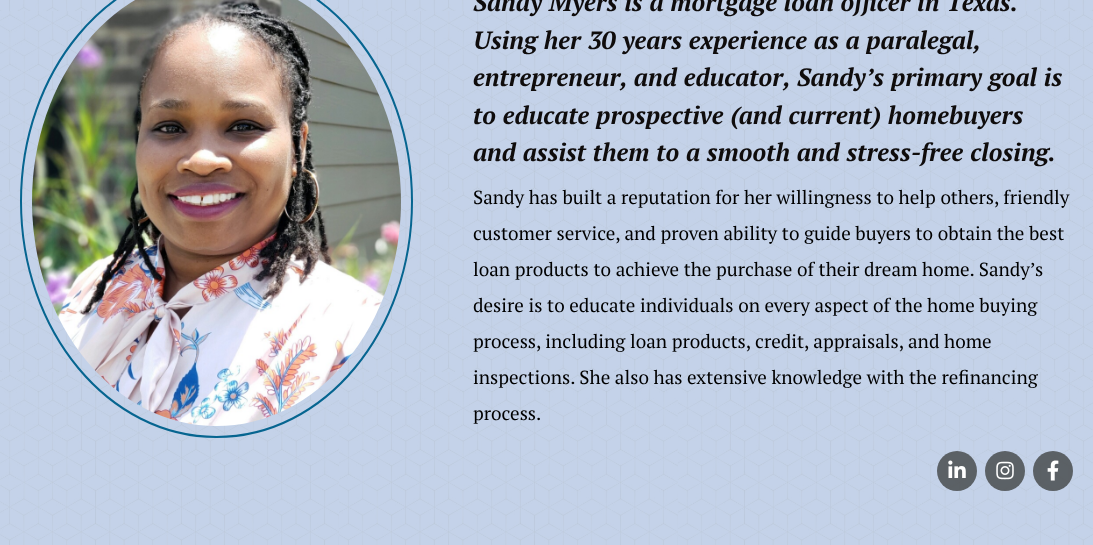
<!DOCTYPE html>
<meta charset="utf-8">
<style>body { margin: 0 } canvas { display: block }</style>
<canvas id="canvas" width="1093" height="545"></canvas>
<script type="module">
  const canvas = document.getElementById("canvas");
  const g = canvas.getContext("2d");
  g.miterLimit = 4;
  g.fontKerning = "normal";
  function drawText(s, x, y, [font, color]) {
    g.font = font;
    g.fillStyle = color;
    g.fillText(s, x, y);
  }
  function fillBox(x, y, w, h, color) {
    g.fillStyle = color;
    g.fillRect(x, y, w, h);
  }
  async function drawPicture(src, x, y, w, h) {
    const img = new Image();
    img.src = src;
    await img.decode();
    g.drawImage(img, x, y, w, h);
  }

  const s1 = ["italic bold 25px PT Serif", "#0F0C0C"];
  const s2 = ["19px PT Serif", "#000000"];

  fillBox(0, 0, 1093, 545, "#B6C7E4");
  await drawPicture("pic1.png", 0, 0, 1093, 545);
  g.beginPath();
  g.moveTo(216.5, -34);
  g.bezierCurveTo(324.5, -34, 412, 71.5, 412, 201.5);
  g.bezierCurveTo(412, 331.5, 324.5, 437, 216.5, 437);
  g.bezierCurveTo(108.5, 437, 21, 331.5, 21, 201.5);
  g.bezierCurveTo(21, 71.5, 108.5, -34, 216.5, -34);
  g.closePath();
  g.strokeStyle = "#066590";
  g.lineWidth = 2;
  g.stroke();
  await drawPicture("pic2.png", 32, 0, 369, 426);
  drawText("Sandy Myers is a mortgage loan officer in Texas.", 473, 11, s1);
  drawText("Using her 30 years experience as a paralegal,", 473, 49, s1);
  drawText("entrepreneur, and educator, Sandy’s primary goal is", 473, 86, s1);
  drawText("to educate prospective (and current) homebuyers", 473, 124, s1);
  drawText("and assist them to a smooth and stress-free closing.", 473, 161, s1);
  drawText("Sandy has built a reputation for her willingness to help others, friendly", 473, 204, s2);
  drawText("customer service, and proven ability to guide buyers to obtain the best", 473, 240, s2);
  drawText("loan products to achieve the purchase of their dream home. Sandy’s", 473, 276, s2);
  drawText("desire is to educate individuals on every aspect of the home buying", 473, 312, s2);
  drawText("process, including loan products, credit, appraisals, and home", 473, 348, s2);
  drawText("inspections. She also has extensive knowledge with the refinancing", 473, 384, s2);
  drawText("process.", 473, 420, s2);
  g.fillStyle = "rgba(70, 73, 74, 0.83)";
  g.beginPath();
  g.arc(957, 471, 20, 0, Math.PI * 2);
  g.fill();
  await drawPicture("pic3.png", 948, 460, 18, 18);
  g.beginPath();
  g.arc(1005, 471, 20, 0, Math.PI * 2);
  g.fill();
  await drawPicture("pic4.png", 996, 461, 18, 19);
  g.beginPath();
  g.arc(1053, 471, 20, 0, Math.PI * 2);
  g.fill();
  await drawPicture("pic5.png", 1047, 460, 12, 21);
</script>
